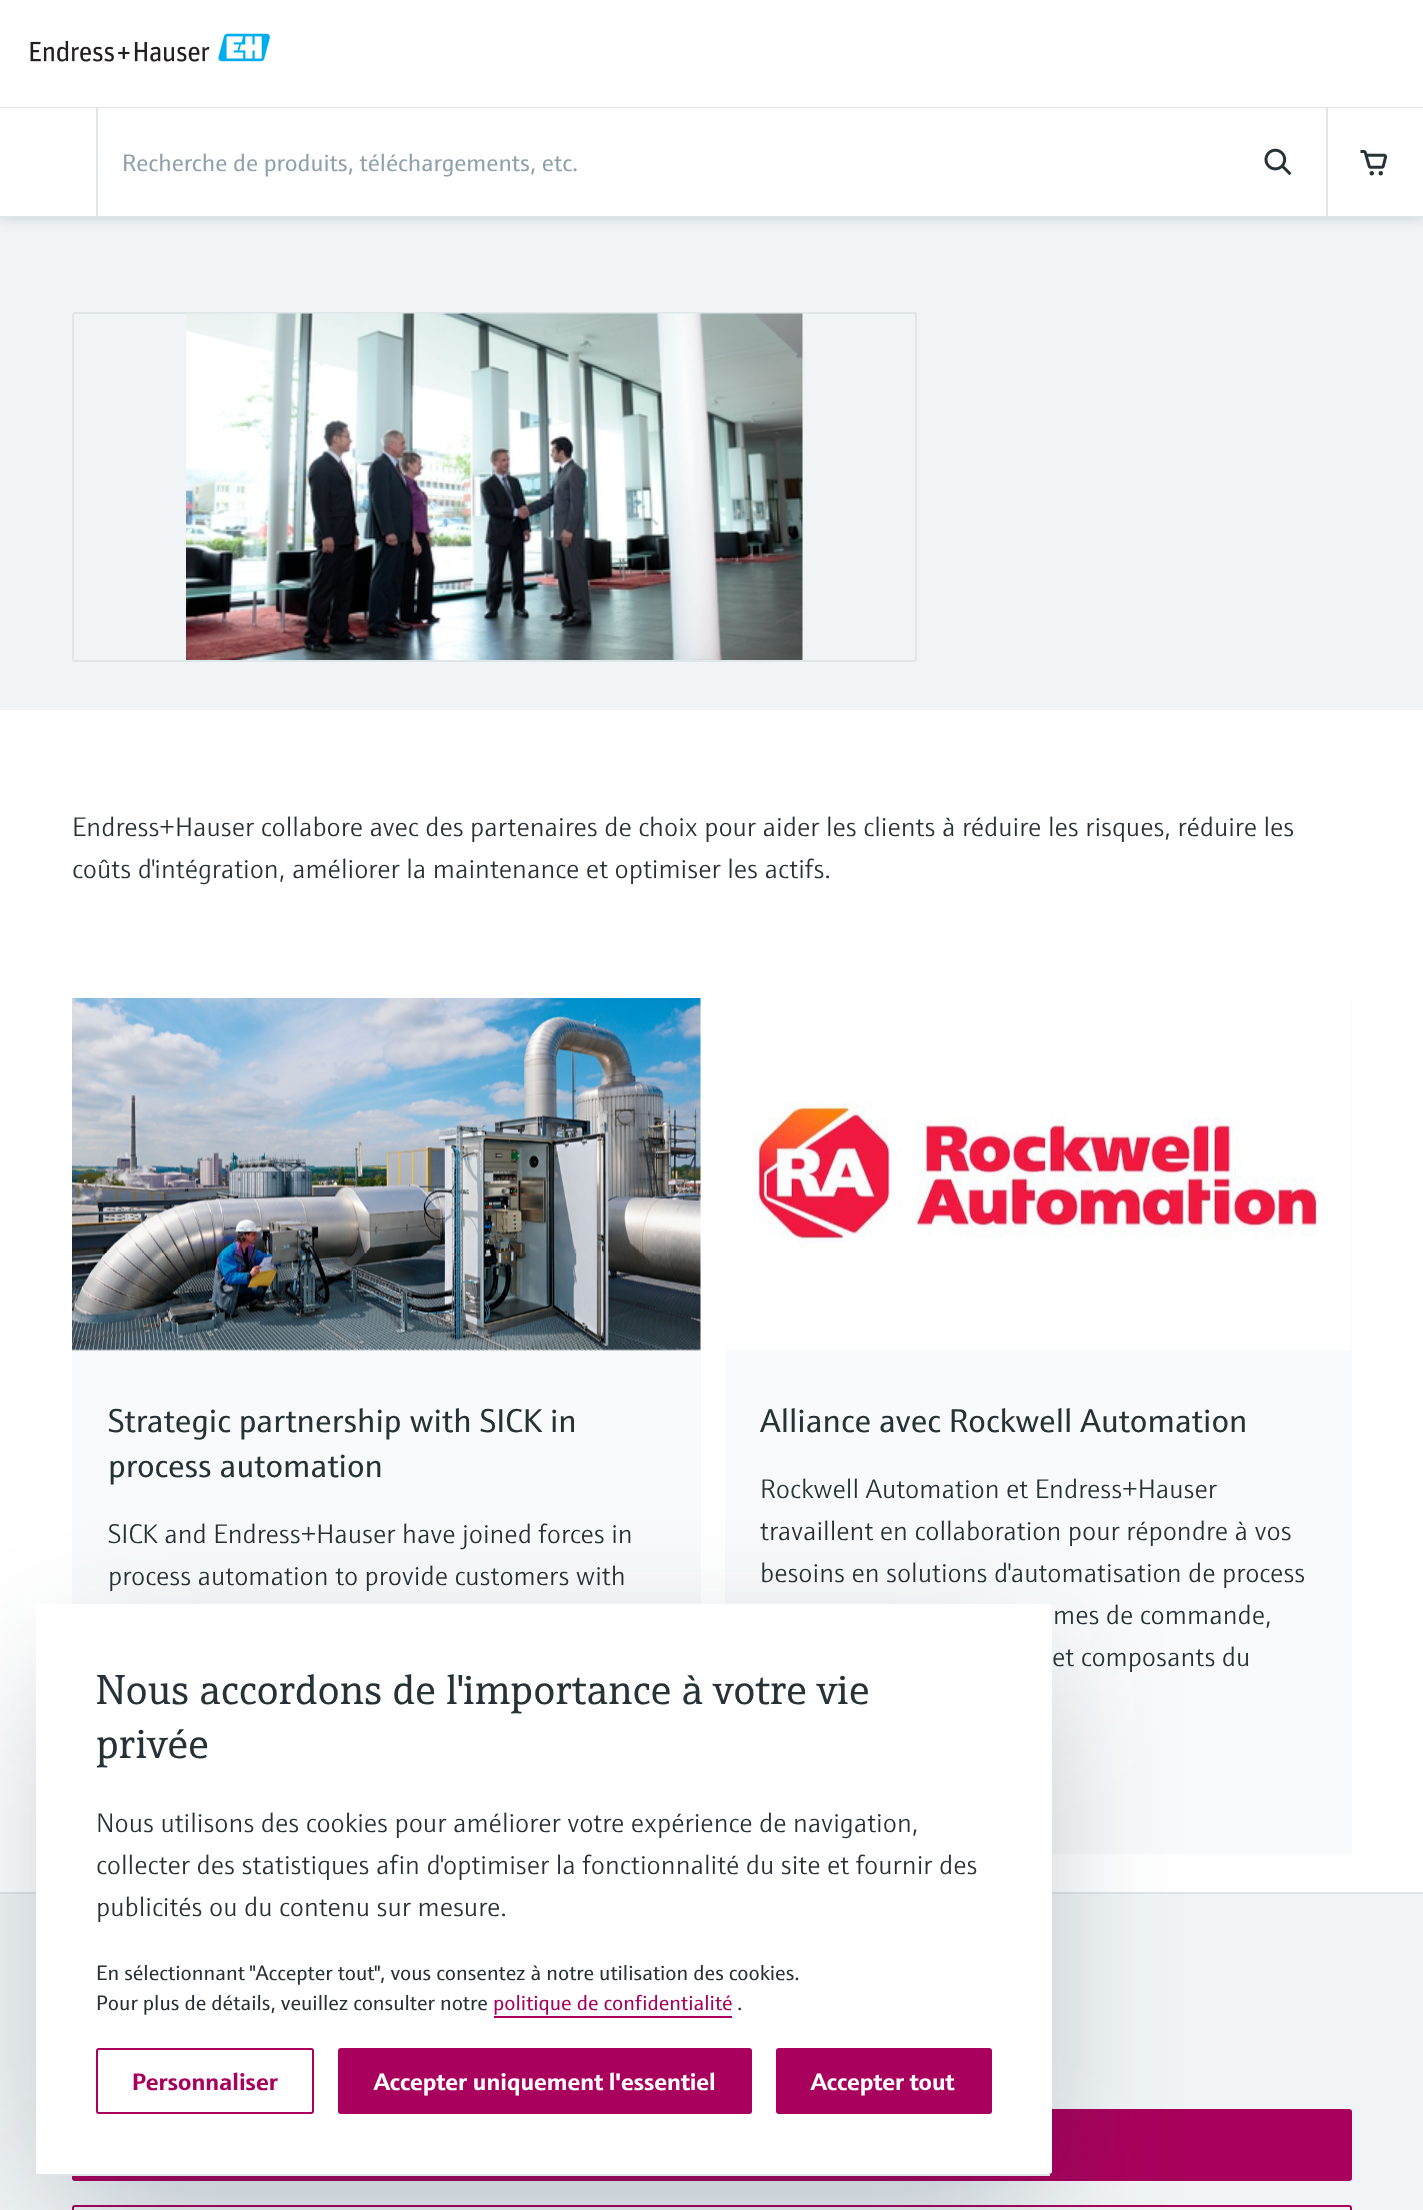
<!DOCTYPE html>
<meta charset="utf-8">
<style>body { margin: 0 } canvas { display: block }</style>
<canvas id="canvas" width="1423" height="2210"></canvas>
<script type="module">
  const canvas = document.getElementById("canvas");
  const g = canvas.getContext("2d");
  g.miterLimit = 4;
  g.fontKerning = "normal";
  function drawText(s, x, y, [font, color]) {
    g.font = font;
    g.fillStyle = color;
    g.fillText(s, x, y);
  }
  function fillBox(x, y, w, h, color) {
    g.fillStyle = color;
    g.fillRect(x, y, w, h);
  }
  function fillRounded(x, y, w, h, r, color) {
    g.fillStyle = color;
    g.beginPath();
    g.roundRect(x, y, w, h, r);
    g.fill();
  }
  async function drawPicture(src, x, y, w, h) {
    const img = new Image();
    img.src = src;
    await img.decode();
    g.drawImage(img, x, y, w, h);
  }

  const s1 = ["24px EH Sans", "#8FA2AC"];
  const s2 = ["300 27px EH Sans", "#273237"];
  const s3 = ["33px EH Sans", "#273237"];
  const s4 = ["42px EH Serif", "#273237"];
  const s5 = ["21px EH Sans", "#273237"];
  const s6 = ["21px EH Sans", "#A8005C"];
  const s7 = ["bold 24px EH Sans", "#A8005C"];
  const s8 = ["bold 24px EH Sans", "#FFFFFF"];

  fillBox(0, 0, 1423, 2210, "#FFFFFF");
  fillBox(0, 218, 1423, 492, "#F0F4F6");
  g.fillStyle = "#C3CED5";
  g.filter = "blur(6px)";
  g.beginPath();
  g.rect(0, 0, 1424, 218);
  g.fill();
  g.filter = "none";
  fillBox(0, 0, 1423, 107, "#FFFFFF");
  fillBox(0, 107, 1423, 1, "#DFE6EA");
  await drawPicture("pic1.png", 30, 33, 240, 29);
  fillBox(0, 108, 1423, 108, "#FFFFFF");
  fillBox(0, 216, 1423, 2, "#DFE6EA");
  fillBox(1326, 108, 2, 108, "#DFE6EA");
  fillBox(96, 108, 2, 108, "#DFE6EA");
  drawText("Recherche de produits, téléchargements, etc.", 122, 171, s1);
  await drawPicture("pic2.png", 1264, 148, 28, 28);
  await drawPicture("pic3.png", 1360, 150, 28, 26);
  g.beginPath();
  g.roundRect(73, 313, 843, 348, 2);
  g.strokeStyle = "#DFE6EA";
  g.lineWidth = 2;
  g.stroke();
  await drawPicture("pic4.png", 186, 313, 617, 347);
  drawText("Endress+Hauser collabore avec des partenaires de choix pour aider les clients à réduire les risques, réduire les", 72, 836, s2);
  drawText("coûts d'intégration, améliorer la maintenance et optimiser les actifs.", 72, 878, s2);
  fillBox(72, 998, 629, 606, "#F8FAFB");
  await drawPicture("pic5.png", 72, 998, 629, 353);
  drawText("Strategic partnership with SICK in", 108, 1432, s3);
  drawText("process automation", 108, 1477, s3);
  drawText("SICK and Endress+Hauser have joined forces in", 108, 1543, s2);
  drawText("process automation to provide customers with", 108, 1585, s2);
  fillBox(725, 998, 627, 856, "#F8FAFB");
  await drawPicture("pic6.png", 725, 998, 626, 352);
  drawText("Alliance avec Rockwell Automation", 760, 1432, s3);
  drawText("Rockwell Automation et Endress+Hauser", 760, 1498, s2);
  drawText("travaillent en collaboration pour répondre à vos", 760, 1540, s2);
  drawText("besoins en solutions d'automatisation de process", 760, 1582, s2);
  drawText("mes de commande,", 1053, 1624, s2);
  drawText("et composants du", 1052, 1666, s2);
  fillBox(0, 1894, 1423, 316, "#F0F4F6");
  fillBox(0, 1892, 1423, 2, "#DFE6EA");
  fillRounded(72, 2109, 1280, 72, 3, "#A8005C");
  g.beginPath();
  g.roundRect(73, 2206, 1278, 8, 2);
  g.strokeStyle = "#A8005C";
  g.stroke();
  g.fillStyle = "rgba(25, 51, 69, 0.3)";
  g.filter = "blur(72px)";
  g.beginPath();
  g.rect(60, 1676, 968, 523);
  g.fill();
  g.filter = "none";
  g.fillStyle = "#FFFFFF";
  g.beginPath();
  g.moveTo(39, 1604);
  g.lineTo(1048, 1604);
  g.bezierCurveTo(1050, 1604, 1052, 1605, 1052, 1606);
  g.lineTo(1052, 2172);
  g.bezierCurveTo(1052, 2173, 1050, 2174, 1048, 2174);
  g.lineTo(39, 2174);
  g.bezierCurveTo(37, 2174, 36, 2173, 36, 2172);
  g.lineTo(36, 1606);
  g.bezierCurveTo(36, 1605, 37, 1604, 39, 1604);
  g.closePath();
  g.fill();
  fillBox(48, 2174, 1002, 2, "#DFE6EA");
  drawText("Nous accordons de l'importance à votre vie", 96, 1704, s4);
  drawText("privée", 96, 1758, s4);
  drawText("Nous utilisons des cookies pour améliorer votre expérience de navigation,", 96, 1832, s2);
  drawText("collecter des statistiques afin d'optimiser la fonctionnalité du site et fournir des", 96, 1874, s2);
  drawText("publicités ou du contenu sur mesure.", 96, 1916, s2);
  drawText("En sélectionnant \"Accepter tout\", vous consentez à notre utilisation des cookies.", 96, 1980, s5);
  drawText("Pour plus de détails, veuillez consulter notre", 96, 2010, s5);
  drawText("politique de confidentialité", 493, 2010, s6);
  fillBox(494, 2016, 238, 2, "#A8005C");
  drawText(".", 737, 2010, s5);
  g.beginPath();
  g.roundRect(97, 2049, 216, 64, 2);
  g.stroke();
  drawText("Personnaliser", 132, 2090, s7);
  fillRounded(338, 2048, 414, 66, 3, "#A8005C");
  drawText("Accepter uniquement l'essentiel", 374, 2090, s8);
  fillRounded(776, 2048, 216, 66, 3, "#A8005C");
  drawText("Accepter tout", 811, 2090, s8);
</script>
